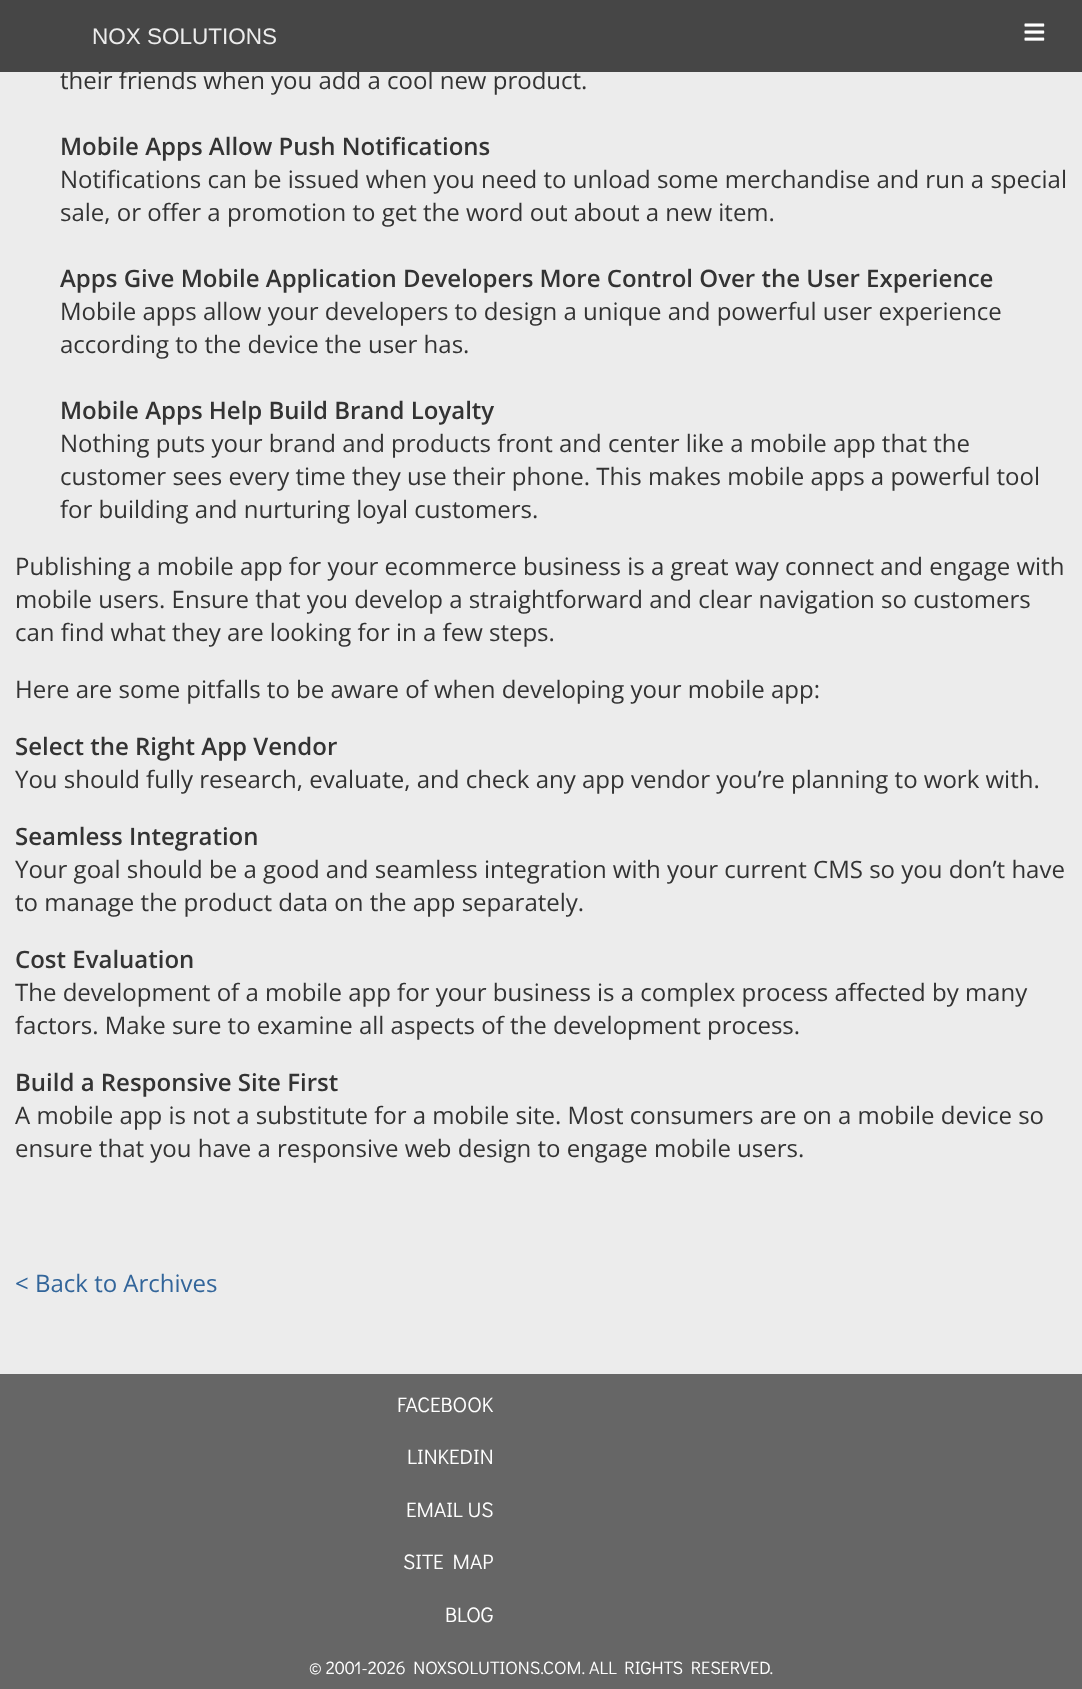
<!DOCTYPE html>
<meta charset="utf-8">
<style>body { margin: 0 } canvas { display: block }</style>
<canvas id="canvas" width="1082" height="1689"></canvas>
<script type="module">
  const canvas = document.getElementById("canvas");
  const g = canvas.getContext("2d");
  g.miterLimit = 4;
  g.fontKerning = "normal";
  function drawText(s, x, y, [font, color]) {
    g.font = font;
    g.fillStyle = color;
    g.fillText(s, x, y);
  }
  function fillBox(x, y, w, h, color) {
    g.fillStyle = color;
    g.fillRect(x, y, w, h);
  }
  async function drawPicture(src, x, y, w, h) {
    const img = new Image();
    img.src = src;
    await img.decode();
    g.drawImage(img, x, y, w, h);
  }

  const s1 = ["24px Open Sans", "#333333"];
  const s2 = ["22.5px Liberation Sans", "#ECECEC"];
  const s3 = ["600 24px Open Sans", "#333333"];
  const s4 = ["24px Open Sans", "#32659A"];
  const s5 = ["21px Didact Gothic", "#FFFFFF"];
  const s6 = ["18px Didact Gothic", "#FFFFFF"];

  fillBox(0, 0, 1082, 1689, "#ECECEC");
  drawText("their friends when you add a cool new product.", 60, 89, s1);
  fillBox(0, 0, 1082, 72, "#464646");
  drawText("NOX SOLUTIONS", 92, 44, s2);
  await drawPicture("pic1.png", 1024, 23, 21, 18);
  drawText("Mobile Apps Allow Push Notifications", 60, 155, s3);
  drawText("Notifications can be issued when you need to unload some merchandise and run a special", 60, 188, s1);
  drawText("sale, or offer a promotion to get the word out about a new item.", 60, 221, s1);
  drawText("Apps Give Mobile Application Developers More Control Over the User Experience", 60, 287, s3);
  drawText("Mobile apps allow your developers to design a unique and powerful user experience", 60, 320, s1);
  drawText("according to the device the user has.", 60, 353, s1);
  drawText("Mobile Apps Help Build Brand Loyalty", 60, 419, s3);
  drawText("Nothing puts your brand and products front and center like a mobile app that the", 60, 452, s1);
  drawText("customer sees every time they use their phone. This makes mobile apps a powerful tool", 60, 485, s1);
  drawText("for building and nurturing loyal customers.", 60, 518, s1);
  drawText("Publishing a mobile app for your ecommerce business is a great way connect and engage with", 15, 575, s1);
  drawText("mobile users. Ensure that you develop a straightforward and clear navigation so customers", 15, 608, s1);
  drawText("can find what they are looking for in a few steps.", 15, 641, s1);
  drawText("Here are some pitfalls to be aware of when developing your mobile app:", 15, 698, s1);
  drawText("Select the Right App Vendor", 15, 755, s3);
  drawText("You should fully research, evaluate, and check any app vendor you’re planning to work with.", 15, 788, s1);
  drawText("Seamless Integration", 15, 845, s3);
  drawText("Your goal should be a good and seamless integration with your current CMS so you don’t have", 15, 878, s1);
  drawText("to manage the product data on the app separately.", 15, 911, s1);
  drawText("Cost Evaluation", 15, 968, s3);
  drawText("The development of a mobile app for your business is a complex process affected by many", 15, 1001, s1);
  drawText("factors. Make sure to examine all aspects of the development process.", 15, 1034, s1);
  drawText("Build a Responsive Site First", 15, 1091, s3);
  drawText("A mobile app is not a substitute for a mobile site. Most consumers are on a mobile device so", 15, 1124, s1);
  drawText("ensure that you have a responsive web design to engage mobile users.", 15, 1157, s1);
  drawText("< Back to Archives", 15, 1292, s4);
  fillBox(0, 1374, 1082, 315, "#666666");
  drawText("FACEBOOK", 397, 1412, s5);
  drawText("LINKEDIN", 407, 1464, s5);
  drawText("EMAIL US", 406, 1517, s5);
  drawText("SITE MAP", 403, 1569, s5);
  drawText("BLOG", 445, 1622, s5);
  drawText("© 2001-2026 NOXSOLUTIONS.COM. ALL RIGHTS RESERVED.", 309, 1674, s6);
</script>
